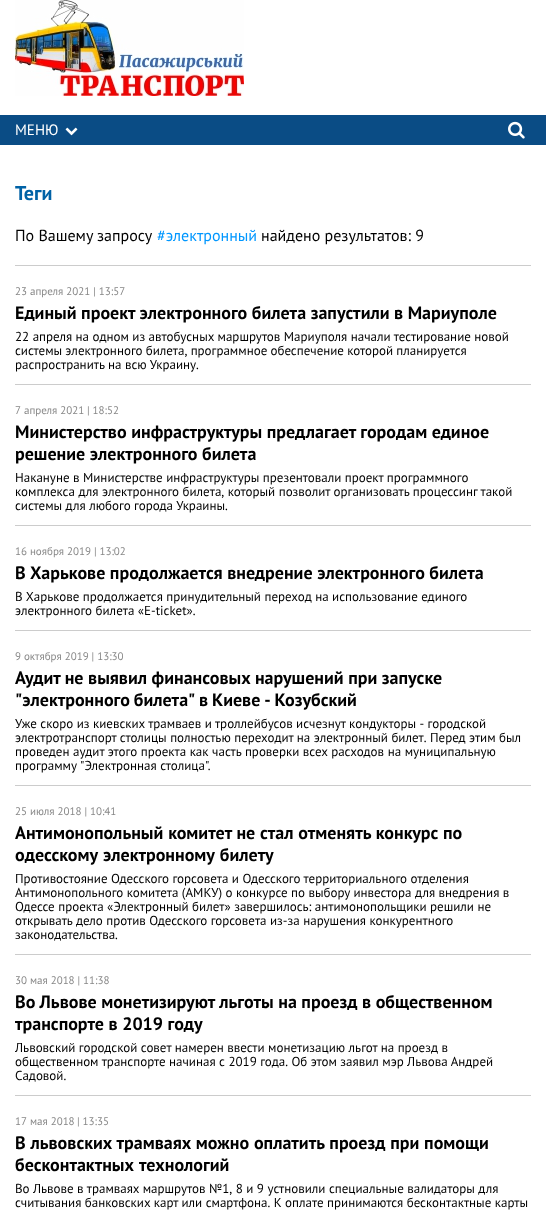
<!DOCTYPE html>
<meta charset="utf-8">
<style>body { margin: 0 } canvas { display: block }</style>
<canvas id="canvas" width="546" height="1214"></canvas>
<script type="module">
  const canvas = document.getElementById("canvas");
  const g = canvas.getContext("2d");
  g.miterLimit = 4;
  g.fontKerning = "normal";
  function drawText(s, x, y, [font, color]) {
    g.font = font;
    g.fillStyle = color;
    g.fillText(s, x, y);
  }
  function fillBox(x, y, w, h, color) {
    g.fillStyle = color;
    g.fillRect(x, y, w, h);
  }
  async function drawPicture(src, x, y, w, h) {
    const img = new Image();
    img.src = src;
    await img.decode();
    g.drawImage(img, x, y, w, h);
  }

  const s1 = ["15px PT Sans", "#FFFFFF"];
  const s2 = ["bold 20px PT Sans", "#0062A6"];
  const s3 = ["16px PT Sans", "#000000"];
  const s4 = ["16px PT Sans", "#0097FF"];
  const s5 = ["11px PT Sans", "#888888"];
  const s6 = ["bold 18px PT Sans", "#000000"];
  const s7 = ["13px PT Sans", "#000000"];

  fillBox(0, 0, 546, 1214, "#FFFFFF");
  await drawPicture("pic1.png", 15, 0, 229, 96);
  fillBox(0, 115, 546, 30, "#0A4C85");
  drawText("МЕНЮ", 15, 135, s1);
  await drawPicture("pic2.png", 65, 127, 13, 9);
  await drawPicture("pic3.png", 508, 121, 17, 18);
  drawText("Теги", 15, 200, s2);
  drawText("По Вашему запросу", 15, 241, s3);
  drawText("#электронный", 157, 241, s4);
  drawText("найдено результатов: 9", 261, 241, s3);
  fillBox(15, 265, 516, 1, "#CCCCCC");
  drawText("23 апреля 2021 | 13:57", 15, 295, s5);
  drawText("Единый проект электронного билета запустили в Мариуполе", 15, 319, s6);
  drawText("22 апреля на одном из автобусных маршрутов Мариуполя начали тестирование новой", 15, 341, s7);
  g.wordSpacing = "-0.25px";
  drawText("системы электронного билета, программное обеспечение которой планируется", 15, 355, s7);
  g.wordSpacing = "0px";
  drawText("распространить на всю Украину.", 15, 369, s7);
  fillBox(15, 384, 516, 1, "#CCCCCC");
  drawText("7 апреля 2021", 15, 414, s5);
  drawText("| 18:52", 87, 414, s5);
  drawText("Министерство инфраструктуры предлагает городам единое", 15, 438, s6);
  drawText("решение электронного билета", 15, 460, s6);
  drawText("Накануне в Министерстве инфраструктуры презентовали проект программного", 15, 482, s7);
  drawText("комплекса для электронного билета, который позволит организовать процессинг такой", 15, 496, s7);
  drawText("системы для любого города Украины.", 15, 510, s7);
  fillBox(15, 525, 516, 1, "#CCCCCC");
  drawText("16 ноября 2019 | 13:02", 15, 555, s5);
  drawText("В Харькове продолжается внедрение электронного билета", 15, 579, s6);
  drawText("В Харькове продолжается принудительный переход на использование единого", 15, 601, s7);
  drawText("электронного билета «Е-ticket».", 15, 615, s7);
  fillBox(15, 630, 516, 1, "#CCCCCC");
  drawText("9 октября 2019 | 13:30", 15, 660, s5);
  drawText("Аудит не выявил финансовых нарушений при запуске", 15, 684, s6);
  g.wordSpacing = "-0.75px";
  drawText("\"электронного билета\" в Киеве - Козубский", 15, 706, s6);
  g.wordSpacing = "0px";
  drawText("Уже скоро из киевских трамваев и троллейбусов исчезнут кондукторы - городской", 15, 728, s7);
  drawText("электротранспорт столицы полностью переходит на электронный билет. Перед этим был", 15, 742, s7);
  g.wordSpacing = "0.1px";
  drawText("проведен аудит этого проекта как часть проверки всех расходов на муниципальную", 15, 756, s7);
  g.wordSpacing = "0px";
  drawText("программу \"Электронная столица\".", 15, 770, s7);
  fillBox(15, 785, 516, 1, "#CCCCCC");
  drawText("25 июля 2018 | 10:41", 15, 815, s5);
  g.wordSpacing = "0.25px";
  drawText("Антимонопольный комитет не стал отменять конкурс по", 15, 839, s6);
  g.wordSpacing = "1px";
  drawText("одесскому электронному билету", 15, 861, s6);
  g.wordSpacing = "0px";
  drawText("Противостояние Одесского горсовета и Одесского территориального отделения", 15, 883, s7);
  drawText("Антимонопольного комитета (АМКУ) о конкурсе по выбору инвестора для внедрения в", 15, 897, s7);
  drawText("Одессе проекта «Электронный билет» завершилось: антимонопольщики решили не", 15, 911, s7);
  drawText("открывать дело против Одесского горсовета из-за нарушения конкурентного", 15, 925, s7);
  drawText("законодательства.", 15, 939, s7);
  fillBox(15, 954, 516, 1, "#CCCCCC");
  drawText("30 мая 2018 | 11:38", 15, 984, s5);
  drawText("Во Львове монетизируют льготы на проезд в общественном", 15, 1008, s6);
  drawText("транспорте в 2019 году", 15, 1030, s6);
  drawText("Львовский городской совет намерен ввести монетизацию льгот на проезд в", 15, 1052, s7);
  drawText("общественном транспорте начиная с 2019 года. Об этом заявил мэр Львова Андрей", 15, 1066, s7);
  drawText("Садовой.", 15, 1080, s7);
  fillBox(15, 1095, 516, 1, "#CCCCCC");
  drawText("17 мая 2018", 15, 1125, s5);
  drawText("| 13:35", 77, 1125, s5);
  g.wordSpacing = "0.25px";
  drawText("В львовских трамваях можно оплатить проезд при помощи", 15, 1149, s6);
  g.wordSpacing = "1px";
  drawText("бесконтактных технологий", 15, 1171, s6);
  g.wordSpacing = "0px";
  drawText("Во Львове в трамваях маршрутов №1, 8 и 9 устновили специальные валидаторы для", 15, 1193, s7);
  drawText("считывания банковских карт или смартфона. К оплате принимаются бесконтактные карты", 15, 1207, s7);
</script>
